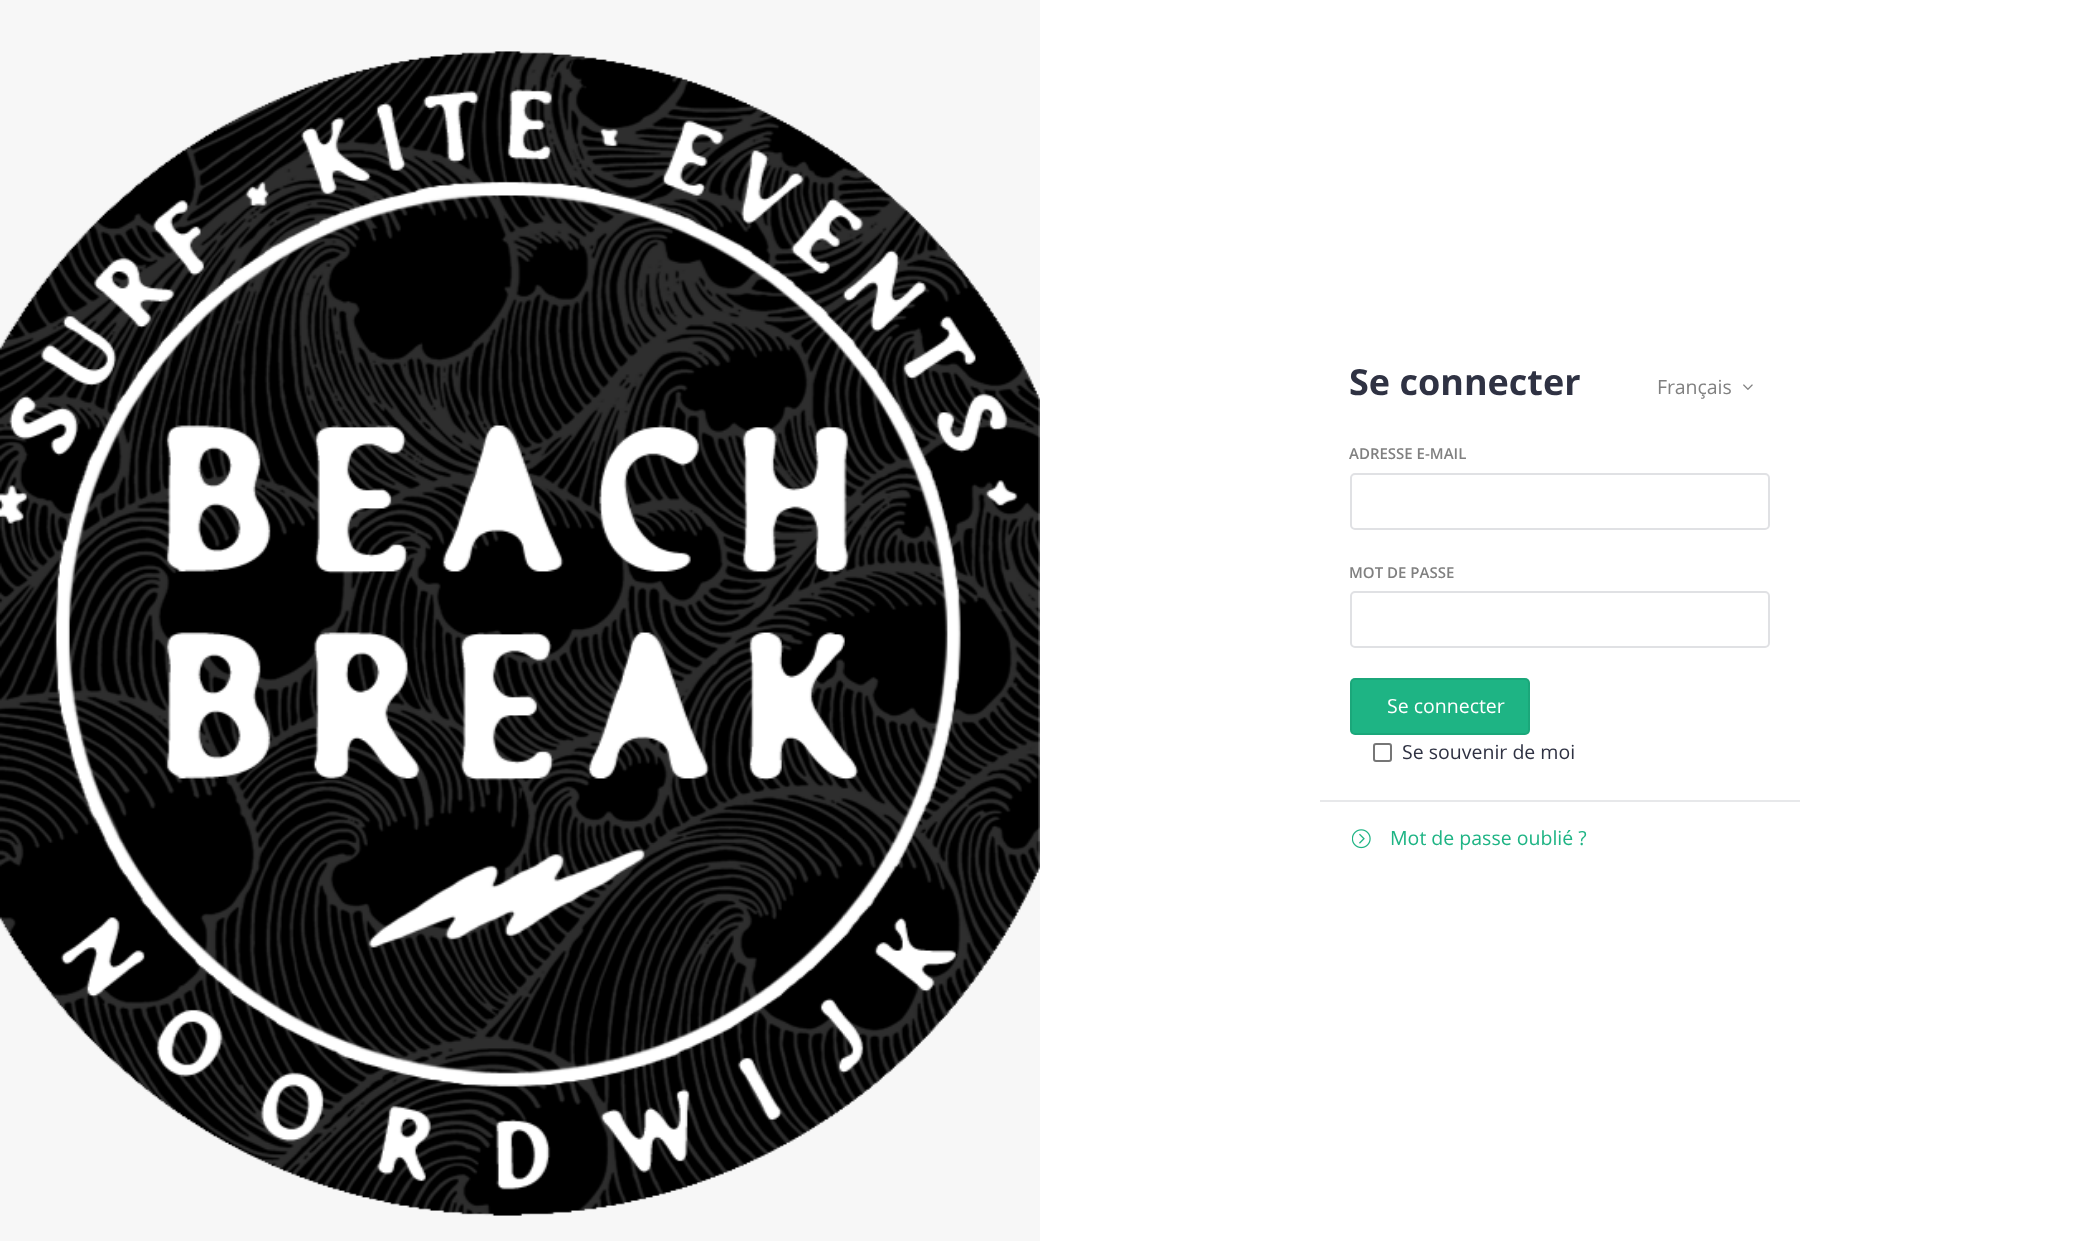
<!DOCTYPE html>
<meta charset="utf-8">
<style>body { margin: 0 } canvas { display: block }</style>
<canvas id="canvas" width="2079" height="1241"></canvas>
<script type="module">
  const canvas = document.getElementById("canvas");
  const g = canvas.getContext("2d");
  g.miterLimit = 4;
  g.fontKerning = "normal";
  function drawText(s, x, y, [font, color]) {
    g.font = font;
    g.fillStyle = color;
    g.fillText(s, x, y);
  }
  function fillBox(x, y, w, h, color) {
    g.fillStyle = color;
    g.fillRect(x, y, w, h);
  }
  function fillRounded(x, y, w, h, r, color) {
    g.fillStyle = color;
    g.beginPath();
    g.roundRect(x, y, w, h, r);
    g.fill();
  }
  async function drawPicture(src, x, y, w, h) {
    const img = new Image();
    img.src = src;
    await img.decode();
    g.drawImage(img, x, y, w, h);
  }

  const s1 = ["bold 36px Open Sans", "#2F3243"];
  const s2 = ["19.5px Open Sans", "#808080"];
  const s3 = ["600 15px Open Sans", "#808080"];
  const s4 = ["19.5px Open Sans", "#FFFFFF"];
  const s5 = ["19.5px Open Sans", "#2F3243"];
  const s6 = ["19.5px Open Sans", "#1EB484"];

  fillBox(0, 0, 2079, 1241, "#FFFFFF");
  fillBox(0, 0, 1040, 1241, "#F7F7F7");
  await drawPicture("pic1.png", 0, 51, 1040, 1165);
  fillBox(1320, 800, 480, 2, "#E7E8EA");
  drawText("Se connecter", 1349, 395, s1);
  drawText("Français", 1657, 394, s2);
  await drawPicture("pic2.png", 1743, 384, 10, 6);
  drawText("ADRESSE E-MAIL", 1349, 459, s3);
  g.beginPath();
  g.roundRect(1351, 474, 418, 55, 4);
  g.strokeStyle = "#E0E1E4";
  g.lineWidth = 2;
  g.stroke();
  drawText("MOT DE PASSE", 1349, 578, s3);
  g.beginPath();
  g.roundRect(1351, 592, 418, 55, 4);
  g.stroke();
  fillRounded(1350, 678, 180, 57, 5, "#1EB484");
  g.beginPath();
  g.roundRect(1351, 679, 178, 55, 4);
  g.strokeStyle = "rgba(0, 0, 0, 0.07)";
  g.stroke();
  drawText("Se connecter", 1387, 713, s4);
  g.beginPath();
  g.roundRect(1374, 744, 17, 17, 2);
  g.strokeStyle = "#767676";
  g.stroke();
  drawText("Se souvenir de moi", 1402, 759, s5);
  await drawPicture("pic3.png", 1352, 829, 19, 20);
  drawText("Mot de passe oublié ?", 1390, 845, s6);
</script>
